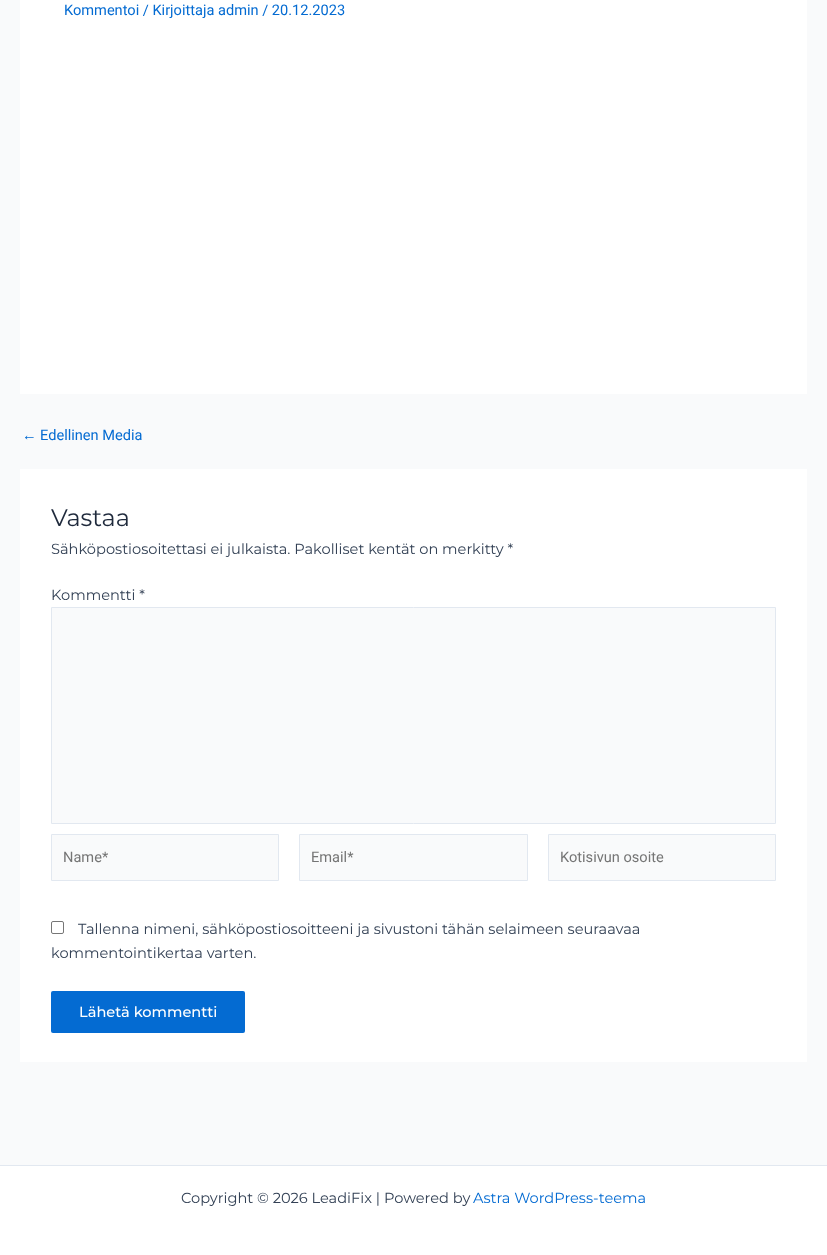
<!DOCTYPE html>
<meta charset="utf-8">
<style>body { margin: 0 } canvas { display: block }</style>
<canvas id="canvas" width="827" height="1255"></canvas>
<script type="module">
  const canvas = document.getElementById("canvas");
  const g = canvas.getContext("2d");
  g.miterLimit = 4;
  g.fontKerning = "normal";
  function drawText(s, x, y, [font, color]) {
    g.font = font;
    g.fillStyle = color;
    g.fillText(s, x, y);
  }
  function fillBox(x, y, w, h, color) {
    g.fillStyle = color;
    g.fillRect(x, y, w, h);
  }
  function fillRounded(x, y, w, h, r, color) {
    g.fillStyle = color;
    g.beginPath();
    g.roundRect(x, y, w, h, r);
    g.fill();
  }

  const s1 = ["14.6px Roboto", "#046BD2"];
  const s2 = ["14.6px Liberation Sans", "#046BD2"];
  const s3 = ["24px Montserrat", "#1E293B"];
  const s4 = ["14.6px Montserrat", "#334155"];
  const s5 = ["14.6px Roboto", "#757575"];
  const s6 = ["500 14.6px Montserrat", "#FFFFFF"];
  const s7 = ["14.6px Montserrat", "#046BD2"];

  fillBox(0, 0, 827, 1255, "#F9FAFB");
  fillBox(20, 0, 787, 394, "#FFFFFF");
  drawText("Kommentoi / Kirjoittaja admin / 20.12.2023", 64, 15, s1);
  drawText("←", 22, 440, s2);
  drawText("Edellinen Media", 40, 440, s1);
  fillBox(20, 469, 787, 593, "#FFFFFF");
  drawText("Vastaa", 51, 526, s3);
  drawText("Sähköpostiosoitettasi ei julkaista. Pakolliset kentät on merkitty *", 51, 554, s4);
  drawText("Kommentti *", 51, 600, s4);
  g.fillStyle = "#F9FAFB";
  g.beginPath();
  g.rect(51.5, 607.5, 724, 216);
  g.fill();
  g.strokeStyle = "#E2E8F0";
  g.stroke();
  g.beginPath();
  g.rect(51.5, 834.5, 227, 46);
  g.fill();
  g.stroke();
  drawText("Name*", 63, 862, s5);
  g.fillStyle = "#F9FAFB";
  g.beginPath();
  g.rect(299.5, 834.5, 228, 46);
  g.fill();
  g.stroke();
  drawText("Email*", 311, 862, s5);
  g.fillStyle = "#F9FAFB";
  g.beginPath();
  g.rect(548.5, 834.5, 227, 46);
  g.fill();
  g.stroke();
  drawText("Kotisivun osoite", 560, 862, s5);
  g.beginPath();
  g.roundRect(51.5, 921.5, 12, 12, 1.5);
  g.strokeStyle = "#767676";
  g.stroke();
  drawText("Tallenna nimeni, sähköpostiosoitteeni ja sivustoni tähän selaimeen seuraavaa", 78, 934, s4);
  drawText("kommentointikertaa varten.", 51, 958, s4);
  fillRounded(51, 991, 194, 42, 2, "#046BD2");
  drawText("Lähetä kommentti", 79, 1017, s6);
  fillBox(0, 1166, 827, 89, "#FFFFFF");
  fillBox(0, 1165, 827, 1, "#E2E8F0");
  drawText("Copyright © 2026 LeadiFix | Powered by", 181, 1203, s4);
  drawText("Astra WordPress-teema", 473, 1203, s7);
</script>
